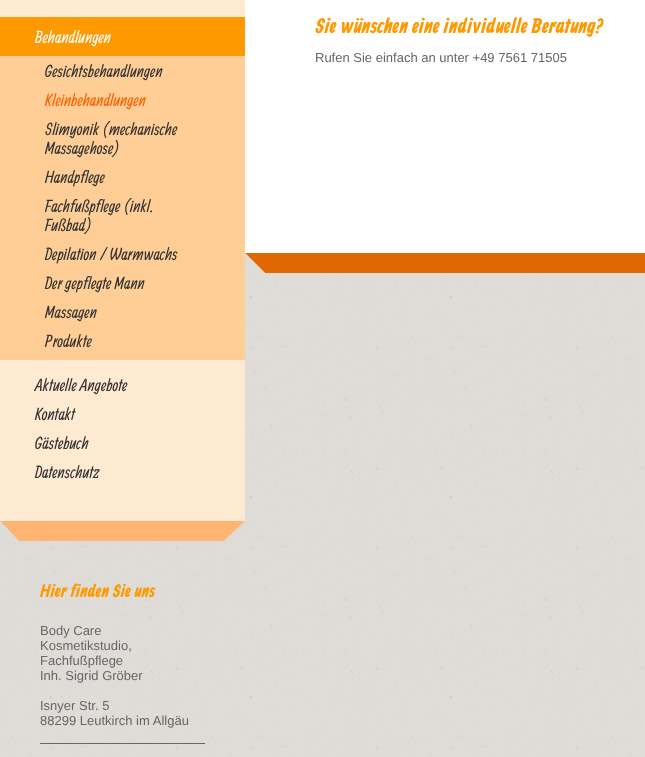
<!DOCTYPE html>
<meta charset="utf-8">
<style>body { margin: 0 } canvas { display: block }</style>
<canvas id="canvas" width="645" height="757"></canvas>
<script type="module">
  const canvas = document.getElementById("canvas");
  const g = canvas.getContext("2d");
  g.miterLimit = 4;
  g.fontKerning = "normal";
  function drawText(s, x, y, [font, color]) {
    g.font = font;
    g.fillStyle = color;
    g.fillText(s, x, y);
  }
  function fillBox(x, y, w, h, color) {
    g.fillStyle = color;
    g.fillRect(x, y, w, h);
  }
  async function drawPicture(src, x, y, w, h) {
    const img = new Image();
    img.src = src;
    await img.decode();
    g.drawImage(img, x, y, w, h);
  }

  const s1 = ["17px Allan", "#FFFFFF"];
  const s2 = ["17px Allan", "#333333"];
  const s3 = ["17px Allan", "#FF6000"];
  const s4 = ["bold 18px Allan", "#FF9900"];
  const s5 = ["13px Liberation Sans", "#666666"];
  const s6 = ["bold 21px Allan", "#FF9900"];

  fillBox(0, 0, 645, 757, "#E0DDD9");
  await drawPicture("pic1.png", 0, 253, 643, 504);
  await drawPicture("pic2.png", 0, 521, 245, 20);
  fillBox(0, 0, 245, 521, "#FEE9D1");
  fillBox(0, 17, 245, 39, "#FF9900");
  drawText("Behandlungen", 35, 43, s1);
  fillBox(0, 56, 245, 304, "#FFCE96");
  drawText("Gesichtsbehandlungen", 45, 77, s2);
  drawText("Kleinbehandlungen", 45, 106, s3);
  drawText("Slimyonik (mechanische", 45, 135, s2);
  drawText("Massagehose)", 45, 154, s2);
  drawText("Handpflege", 45, 183, s2);
  drawText("Fachfußpflege (inkl.", 45, 212, s2);
  drawText("Fußbad)", 45, 231, s2);
  drawText("Depilation / Warmwachs", 45, 260, s2);
  drawText("Der gepflegte Mann", 45, 289, s2);
  drawText("Massagen", 45, 318, s2);
  drawText("Produkte", 45, 347, s2);
  drawText("Aktuelle Angebote", 35, 391, s2);
  drawText("Kontakt", 35, 420, s2);
  drawText("Gästebuch", 35, 449, s2);
  drawText("Datenschutz", 35, 478, s2);
  drawText("Hier finden Sie uns", 40, 597, s4);
  drawText("Body Care", 40, 635, s5);
  drawText("Kosmetikstudio,", 40, 650, s5);
  drawText("Fachfußpflege", 40, 665, s5);
  drawText("Inh. Sigrid Gröber", 40, 680, s5);
  drawText("Isnyer Str. 5", 40, 710, s5);
  drawText("88299 Leutkirch im Allgäu", 40, 725, s5);
  fillBox(40, 743, 165, 1, "#666666");
  fillBox(245, 0, 400, 253, "#FFFFFF");
  drawText("Sie wünschen eine individuelle Beratung?", 315, 33, s6);
  drawText("Rufen Sie einfach an unter +49 7561 71505", 315, 62, s5);
  await drawPicture("pic3.png", 245, 253, 400, 20);
</script>
